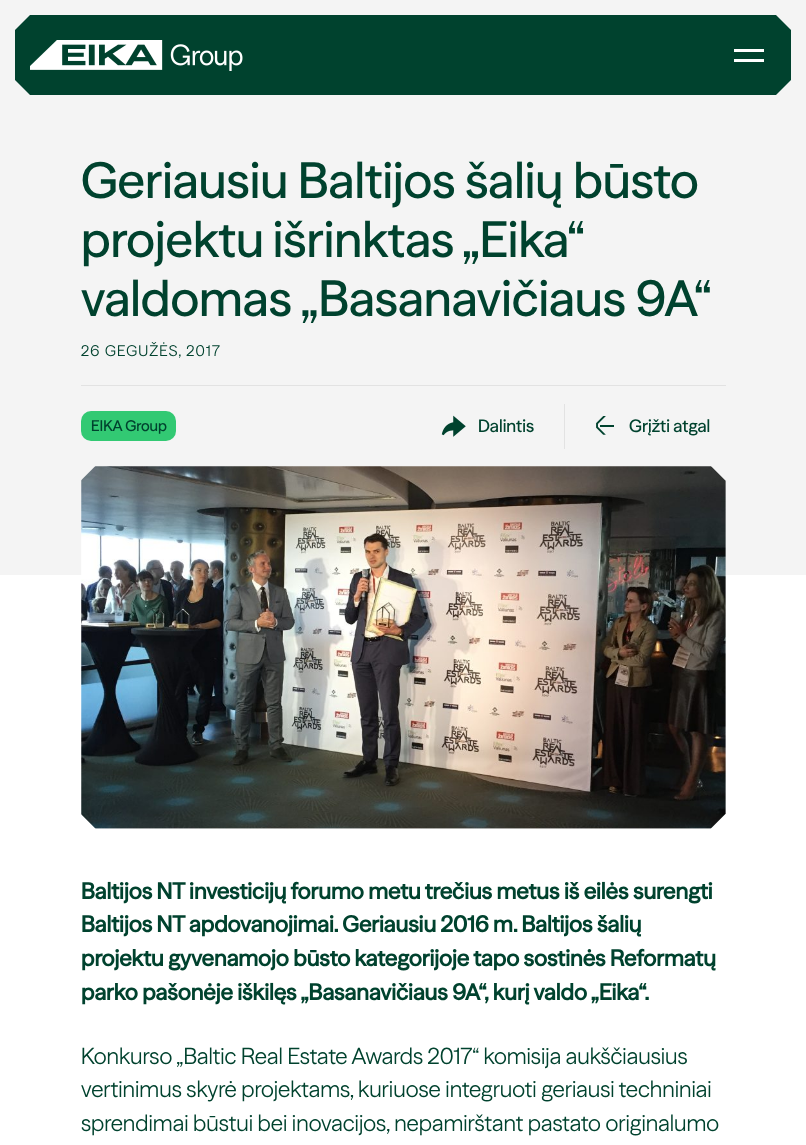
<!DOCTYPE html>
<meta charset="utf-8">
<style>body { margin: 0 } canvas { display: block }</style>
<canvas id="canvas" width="806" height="1145"></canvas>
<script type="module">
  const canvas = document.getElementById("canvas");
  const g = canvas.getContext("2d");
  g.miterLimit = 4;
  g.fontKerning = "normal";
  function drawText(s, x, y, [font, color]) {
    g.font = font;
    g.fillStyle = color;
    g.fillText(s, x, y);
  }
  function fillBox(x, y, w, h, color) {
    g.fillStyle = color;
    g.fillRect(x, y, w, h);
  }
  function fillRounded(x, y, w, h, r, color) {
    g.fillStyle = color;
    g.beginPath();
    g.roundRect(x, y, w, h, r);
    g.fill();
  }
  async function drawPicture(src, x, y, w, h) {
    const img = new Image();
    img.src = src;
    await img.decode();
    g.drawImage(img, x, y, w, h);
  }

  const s1 = ["500 49.75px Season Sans", "#00422E"];
  const s2 = ["15px Season Sans", "#00422E"];
  const s3 = ["500 15px Season Sans", "#00422E"];
  const s4 = ["500 17.5px Season Sans", "#00422E"];
  const s5 = ["bold 22.5px Season Sans", "#00422E"];
  const s6 = ["22.5px Season Sans", "#00422E"];

  fillBox(0, 0, 806, 1145, "#FFFFFF");
  fillBox(0, 0, 806, 575, "#F4F4F4");
  g.fillStyle = "#00422E";
  g.beginPath();
  g.moveTo(30, 15);
  g.lineTo(15, 30);
  g.lineTo(15, 80);
  g.lineTo(30, 95);
  g.lineTo(776, 95);
  g.lineTo(791, 80);
  g.lineTo(791, 30);
  g.lineTo(776, 15);
  g.closePath();
  g.fill();
  await drawPicture("pic1.png", 30, 40, 213, 31);
  fillBox(734, 49, 30, 3, "#FFFFFF");
  fillBox(734, 59, 30, 3, "#FFFFFF");
  drawText("Geriausiu Baltijos šalių būsto", 81, 198, s1);
  g.wordSpacing = "-1px";
  drawText("projektu išrinktas „Eika“", 81, 257, s1);
  g.wordSpacing = "0px";
  drawText("valdomas „Basanavičiaus 9A“", 81, 316, s1);
  g.letterSpacing = "1.25px";
  drawText("26 GEGUŽĖS, 2017", 81, 356, s2);
  fillBox(81, 385, 645, 1, "#E2E2E2");
  fillRounded(81, 411, 95, 30, 10, "#32C973");
  g.letterSpacing = "0px";
  drawText("EIKA Group", 91, 431, s3);
  await drawPicture("pic2.png", 441, 415, 25, 22);
  drawText("Dalintis", 478, 432, s4);
  fillBox(564, 404, 1, 45, "#E2E2E2");
  await drawPicture("pic3.png", 596, 416, 18, 19);
  drawText("Grįžti atgal", 629, 432, s4);
  await drawPicture("pic4.png", 81, 466, 645, 363);
  drawText("Baltijos NT investicijų forumo metu trečius metus iš eilės surengti", 81, 899, s5);
  drawText("Baltijos NT apdovanojimai. Geriausiu 2016 m. Baltijos šalių", 81, 932, s5);
  drawText("projektu gyvenamojo būsto kategorijoje tapo sostinės Reformatų", 81, 966, s5);
  drawText("parko pašonėje iškilęs „Basanavičiaus 9A“, kurį valdo „Eika“.", 81, 1000, s5);
  drawText("Konkurso „Baltic Real Estate Awards 2017“ komisija aukščiausius", 81, 1064, s6);
  drawText("vertinimus skyrė projektams, kuriuose integruoti geriausi techniniai", 81, 1097, s6);
  drawText("sprendimai būstui bei inovacijos, nepamirštant pastato originalumo", 81, 1131, s6);
</script>
